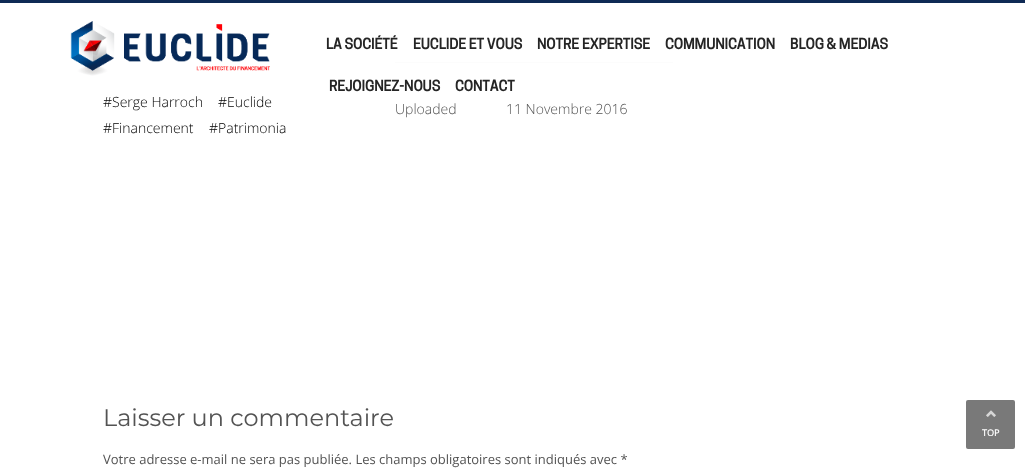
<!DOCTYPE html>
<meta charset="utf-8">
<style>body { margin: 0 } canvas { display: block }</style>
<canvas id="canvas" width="1025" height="470"></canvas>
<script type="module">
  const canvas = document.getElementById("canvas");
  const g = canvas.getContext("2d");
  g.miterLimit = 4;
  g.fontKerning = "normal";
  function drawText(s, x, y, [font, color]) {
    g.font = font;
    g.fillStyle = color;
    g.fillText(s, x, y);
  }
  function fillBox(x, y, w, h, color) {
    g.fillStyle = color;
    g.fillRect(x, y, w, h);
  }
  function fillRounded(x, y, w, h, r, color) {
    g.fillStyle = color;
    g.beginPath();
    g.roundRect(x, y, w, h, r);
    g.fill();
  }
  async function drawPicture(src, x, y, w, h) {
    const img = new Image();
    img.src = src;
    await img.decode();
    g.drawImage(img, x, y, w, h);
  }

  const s1 = ["bold 14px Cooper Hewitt", "#252525"];
  const s2 = ["300 14px Open Sans", "#000000"];
  const s3 = ["300 14px Open Sans", "#535353"];
  const s4 = ["24px Montserrat", "#535353"];
  const s5 = ["13px Open Sans", "#535353"];
  const s6 = ["bold 9px Open Sans", "#FFFFFF"];

  fillBox(0, 0, 1025, 470, "#FFFFFF");
  fillBox(395, 62, 278, 1, "#E6E6E6");
  fillBox(395, 62, 278, 1, "rgba(255, 255, 255, 0.85)");
  fillBox(0, 0, 1025, 3, "#0F2A55");
  await drawPicture("pic1.png", 70, 21, 200, 55);
  drawText("LA SOCIÉTÉ", 326, 49, s1);
  drawText("EUCLIDE ET VOUS", 413, 49, s1);
  drawText("NOTRE EXPERTISE", 537, 49, s1);
  drawText("COMMUNICATION", 665, 49, s1);
  drawText("BLOG & MEDIAS", 790, 49, s1);
  drawText("REJOIGNEZ-NOUS", 329, 91, s1);
  drawText("CONTACT", 455, 91, s1);
  drawText("#Serge Harroch", 103, 107, s2);
  drawText("#Euclide", 218, 107, s2);
  drawText("#Financement", 103, 133, s2);
  drawText("#Patrimonia", 209, 133, s2);
  drawText("Uploaded", 395, 114, s3);
  drawText("11 Novembre 2016", 506, 114, s3);
  drawText("Laisser un commentaire", 103, 426, s4);
  drawText("Votre adresse e-mail ne sera pas publiée. Les champs obligatoires sont indiqués avec *", 103, 464, s5);
  fillRounded(966, 400, 49, 49, 2, "#797979");
  await drawPicture("pic2.png", 986, 410, 10, 7);
  drawText("TOP", 982, 436, s6);
</script>
